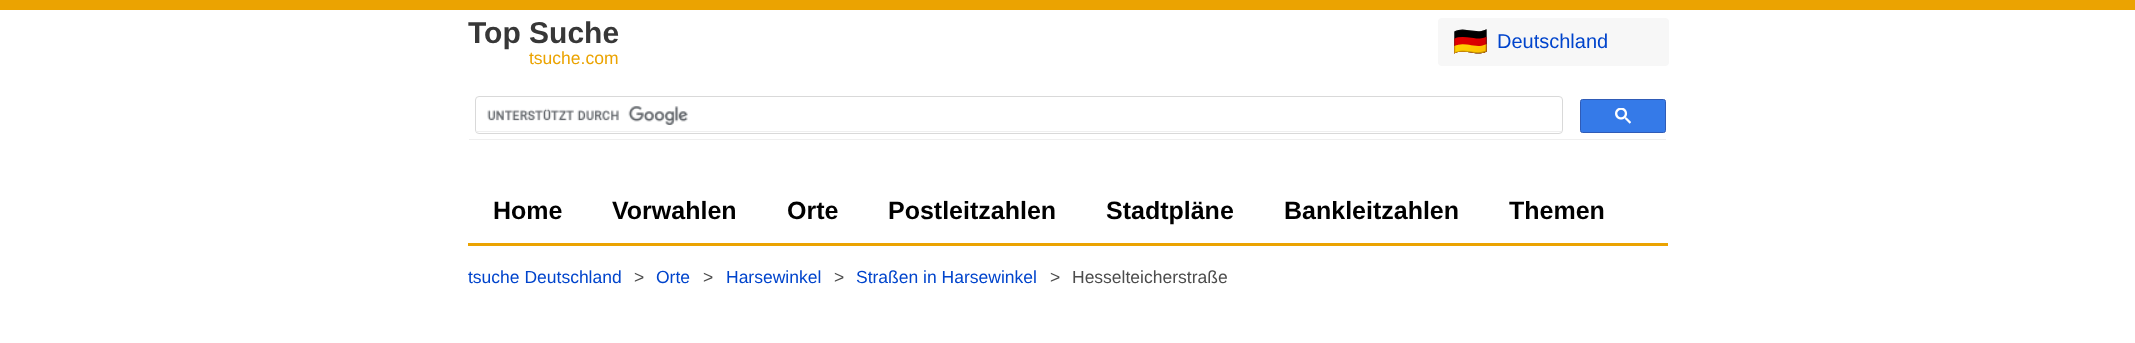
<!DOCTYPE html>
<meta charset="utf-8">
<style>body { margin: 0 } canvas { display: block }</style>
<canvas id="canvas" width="2135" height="343"></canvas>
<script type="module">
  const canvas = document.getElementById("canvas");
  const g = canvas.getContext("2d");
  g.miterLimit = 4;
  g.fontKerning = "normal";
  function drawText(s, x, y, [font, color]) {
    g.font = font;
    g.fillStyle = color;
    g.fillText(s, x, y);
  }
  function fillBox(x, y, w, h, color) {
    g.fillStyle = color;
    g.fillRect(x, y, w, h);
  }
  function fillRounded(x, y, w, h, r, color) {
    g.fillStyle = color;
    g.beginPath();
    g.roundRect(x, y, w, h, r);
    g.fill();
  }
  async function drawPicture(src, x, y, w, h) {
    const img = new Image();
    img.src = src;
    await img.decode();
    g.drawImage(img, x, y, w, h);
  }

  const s1 = ["bold 30px Liberation Sans", "#373737"];
  const s2 = ["17.5px Liberation Sans", "#EBA301"];
  const s3 = ["28px Noto Color Emoji", "#0044CC"];
  const s4 = ["20px Liberation Sans", "#0044CC"];
  const s5 = ["bold 25px Liberation Sans", "#000000"];
  const s6 = ["17.5px Liberation Sans", "#0044CC"];
  const s7 = ["17.5px Liberation Sans", "#4C4C4C"];

  fillBox(0, 0, 2135, 343, "#FFFFFF");
  fillBox(0, 0, 2135, 10, "#EBA301");
  drawText("Top Suche", 468, 43, s1);
  drawText("tsuche.com", 529, 64, s2);
  fillRounded(1438, 18, 231, 48, 4, "#F7F7F7");
  drawText("🇩🇪", 1453, 51, s3);
  drawText("Deutschland", 1497, 48, s4);
  fillBox(469, 139, 1197, 1, "#EFEFEF");
  g.beginPath();
  g.roundRect(475.5, 96.5, 1087, 37, 3.5);
  g.strokeStyle = "#D9D9D9";
  g.stroke();
  fillBox(476, 131, 1085, 1, "#EFEFEF");
  await drawPicture("pic1.png", 487, 106, 201, 19);
  g.fillStyle = "#357AE8";
  g.beginPath();
  g.roundRect(1580.5, 99.5, 85, 33, 2);
  g.fill();
  g.strokeStyle = "#2F5BB7";
  g.stroke();
  await drawPicture("pic2.png", 1615, 108, 16, 16);
  fillBox(468, 243, 1200, 3, "#EBA301");
  drawText("Home", 493, 219, s5);
  drawText("Vorwahlen", 612, 219, s5);
  drawText("Orte", 787, 219, s5);
  drawText("Postleitzahlen", 888, 219, s5);
  drawText("Stadtpläne", 1106, 219, s5);
  drawText("Bankleitzahlen", 1284, 219, s5);
  drawText("Themen", 1509, 219, s5);
  drawText("tsuche Deutschland", 468, 283, s6);
  drawText(">", 634, 283, s7);
  drawText("Orte", 656, 283, s6);
  drawText(">", 703, 283, s7);
  drawText("Harsewinkel", 726, 283, s6);
  drawText(">", 834, 283, s7);
  drawText("Straßen in Harsewinkel", 856, 283, s6);
  drawText(">", 1050, 283, s7);
  drawText("Hesselteicherstraße", 1072, 283, s7);
</script>
